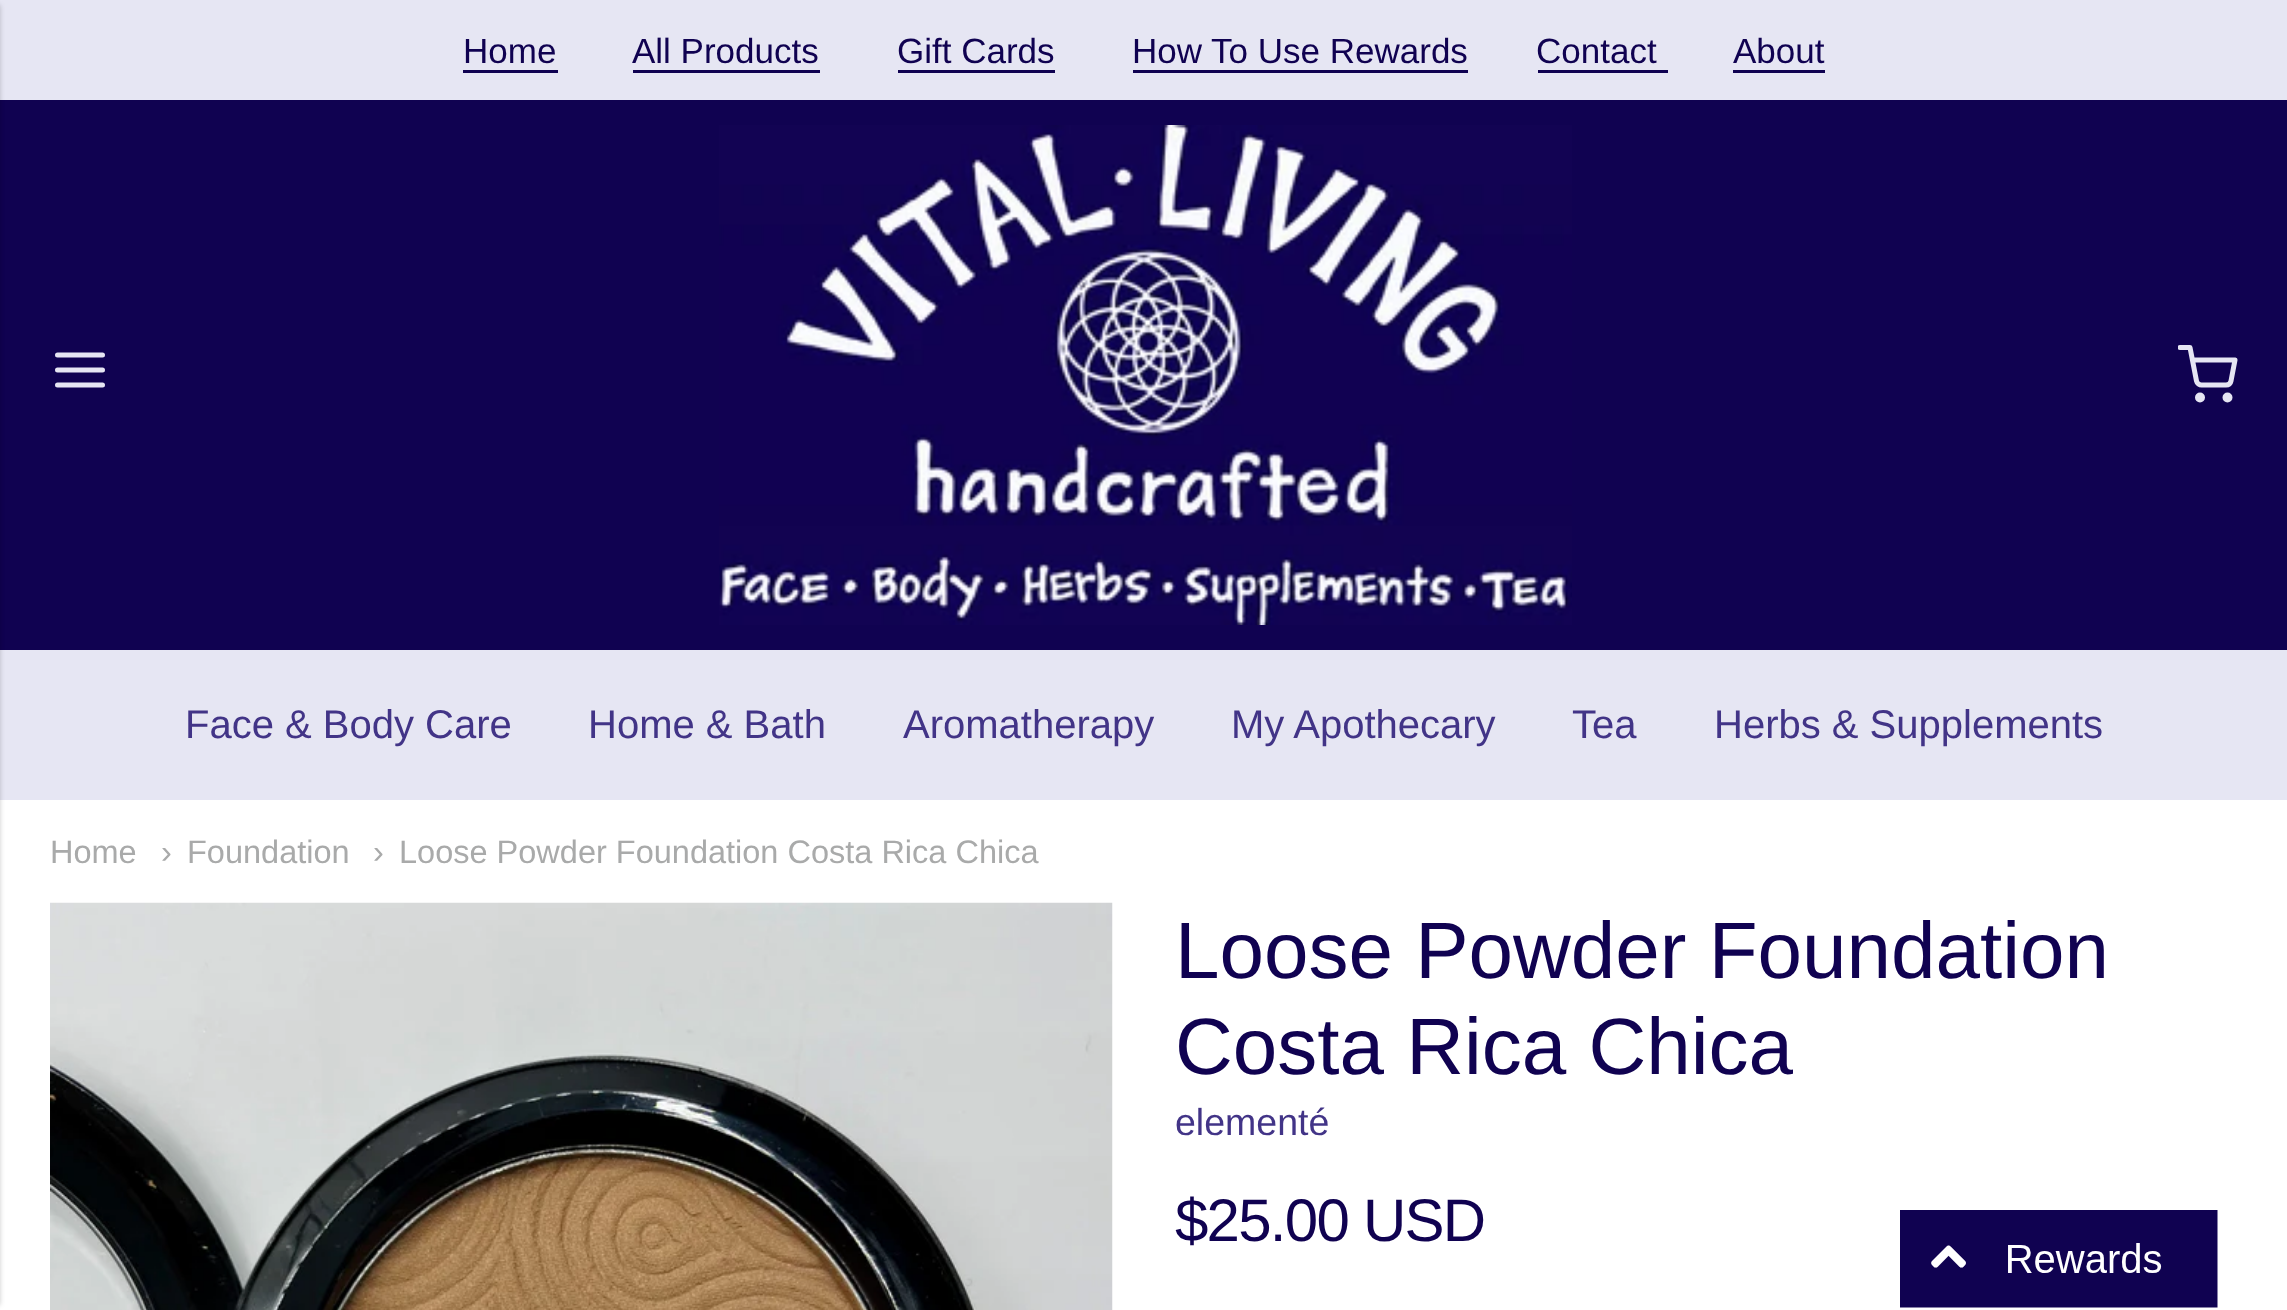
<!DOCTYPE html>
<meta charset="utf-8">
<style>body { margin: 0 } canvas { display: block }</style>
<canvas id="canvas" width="2287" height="1310"></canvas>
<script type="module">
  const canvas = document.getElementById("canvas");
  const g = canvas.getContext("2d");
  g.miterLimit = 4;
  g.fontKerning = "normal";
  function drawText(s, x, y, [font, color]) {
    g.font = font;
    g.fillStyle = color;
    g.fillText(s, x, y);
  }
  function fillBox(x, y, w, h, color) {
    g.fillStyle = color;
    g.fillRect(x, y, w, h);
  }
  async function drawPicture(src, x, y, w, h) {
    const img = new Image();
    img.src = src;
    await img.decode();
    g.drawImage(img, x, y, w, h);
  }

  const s1 = ["35px Liberation Sans", "#100251"];
  const s2 = ["40px Liberation Sans", "#423487"];
  const s3 = ["32.5px Liberation Sans", "#A9AAAA"];
  const s4 = ["80px Liberation Sans", "#100251"];
  const s5 = ["37.5px Liberation Sans", "#423487"];
  const s6 = ["60px Liberation Sans", "#100251"];

  fillBox(0, 0, 2287, 1310, "#FFFFFF");
  fillBox(0, 0, 2287, 100, "#E6E6F3");
  fillBox(0, 100, 2287, 550, "#100251");
  fillBox(0, 650, 2287, 150, "#E6E6F3");
  g.fillStyle = "rgba(0, 0, 0, 0.2)";
  g.filter = "blur(2.5px)";
  g.beginPath();
  g.rect(-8, 5, 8, 1300);
  g.fill();
  g.filter = "none";
  drawText("Home", 463, 63, s1);
  fillBox(463, 70, 95, 3, "#100251");
  drawText("All Products", 632, 63, s1);
  fillBox(633, 70, 187, 3, "#100251");
  drawText("Gift Cards", 897, 63, s1);
  fillBox(898, 70, 157, 3, "#100251");
  drawText("How To Use Rewards", 1132, 63, s1);
  fillBox(1133, 70, 335, 3, "#100251");
  drawText("Contact", 1536, 63, s1);
  fillBox(1538, 70, 130, 3, "#100251");
  drawText("About", 1733, 63, s1);
  fillBox(1733, 70, 92, 3, "#100251");
  g.beginPath();
  g.moveTo(57.5, 370);
  g.lineTo(102.5, 370);
  g.moveTo(57.5, 355);
  g.lineTo(102.5, 355);
  g.moveTo(57.5, 385);
  g.lineTo(102.5, 385);
  g.strokeStyle = "#E6E6F3";
  g.lineWidth = 5;
  g.lineCap = "round";
  g.lineJoin = "round";
  g.stroke();
  await drawPicture("pic1.png", 719, 125, 853, 500);
  g.save();
  g.beginPath();
  g.rect(2178, 345, 60, 60);
  g.clip();
  g.beginPath();
  g.moveTo(2180, 347.5);
  g.lineTo(2190, 347.5);
  g.lineTo(2196.5, 381);
  g.bezierCurveTo(2197, 383.5, 2199.5, 385, 2201.5, 385);
  g.lineTo(2226, 385);
  g.bezierCurveTo(2228.5, 385, 2230.5, 383.5, 2231, 381);
  g.lineTo(2235, 360);
  g.lineTo(2192.5, 360);
  g.stroke();
  g.restore();
  g.beginPath();
  g.arc(2200, 397.5, 2.5, 0, Math.PI * 2);
  g.stroke();
  g.beginPath();
  g.arc(2227.5, 397.5, 2.5, 0, Math.PI * 2);
  g.stroke();
  drawText("Face & Body Care", 185, 738, s2);
  drawText("Home & Bath", 588, 738, s2);
  drawText("Aromatherapy", 903, 738, s2);
  drawText("My Apothecary", 1231, 738, s2);
  drawText("Tea", 1572, 738, s2);
  drawText("Herbs & Supplements", 1714, 738, s2);
  drawText("Home", 50, 863, s3);
  drawText("›", 161, 863, s3);
  drawText("Foundation", 187, 863, s3);
  drawText("›", 373, 863, s3);
  drawText("Loose Powder Foundation Costa Rica Chica", 399, 863, s3);
  await drawPicture("pic2.png", 50, 902, 1063, 408);
  drawText("Loose Powder Foundation", 1175, 978, s4);
  drawText("Costa Rica Chica", 1175, 1074, s4);
  drawText("elementé", 1175, 1135, s5);
  g.letterSpacing = "-1.75px";
  drawText("$25.00 USD", 1175, 1241, s6);
  await drawPicture("pic3.png", 1900, 1210, 318, 98);
</script>
